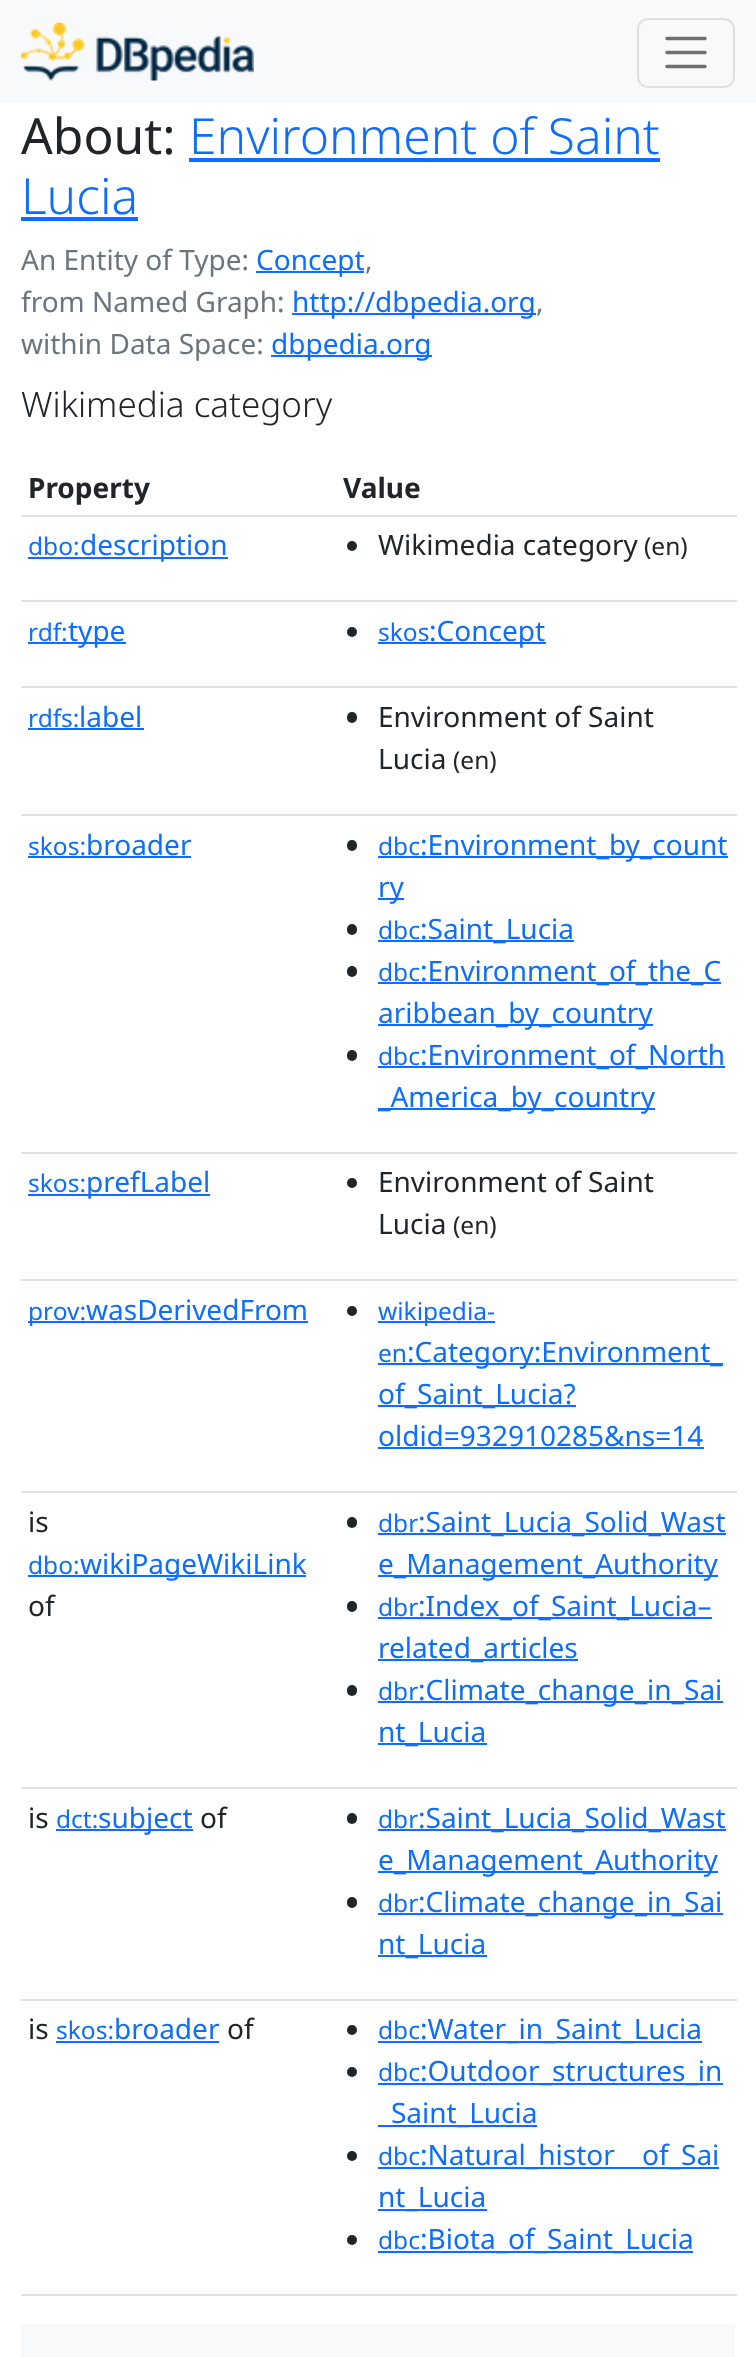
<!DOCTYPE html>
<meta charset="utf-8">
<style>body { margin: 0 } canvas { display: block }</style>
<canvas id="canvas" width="756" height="2357"></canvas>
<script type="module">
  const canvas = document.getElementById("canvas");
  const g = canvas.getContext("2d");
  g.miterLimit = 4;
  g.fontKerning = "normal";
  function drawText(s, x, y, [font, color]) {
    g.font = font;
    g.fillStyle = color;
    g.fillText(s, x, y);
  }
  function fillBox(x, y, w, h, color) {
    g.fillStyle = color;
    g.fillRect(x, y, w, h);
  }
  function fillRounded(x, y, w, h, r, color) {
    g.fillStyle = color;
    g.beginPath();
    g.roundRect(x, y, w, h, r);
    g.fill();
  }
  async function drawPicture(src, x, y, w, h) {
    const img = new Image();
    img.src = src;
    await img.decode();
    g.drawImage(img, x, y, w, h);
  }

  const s1 = ["49.75px Noto Sans", "#212529"];
  const s2 = ["300 49.75px Noto Sans", "#0D6EFD"];
  const s3 = ["28px Noto Sans", "#6C757D"];
  const s4 = ["28px Noto Sans", "#0D6EFD"];
  const s5 = ["300 35px Noto Sans", "#212529"];
  const s6 = ["bold 28px Noto Sans", "#212529"];
  const s7 = ["24.5px Noto Sans", "#0D6EFD"];
  const s8 = ["28px Noto Sans", "#212529"];
  const s9 = ["24.5px Noto Sans", "#212529"];

  fillBox(0, 0, 756, 2357, "#FFFFFF");
  fillBox(0, 0, 756, 103, "#F8F9FA");
  await drawPicture("pic1.png", 21, 22, 233, 59);
  g.beginPath();
  g.roundRect(638, 19, 96, 68, 10);
  g.strokeStyle = "#DFE0E1";
  g.lineWidth = 2;
  g.stroke();
  g.beginPath();
  g.moveTo(667, 38.5);
  g.lineTo(705, 38.5);
  g.moveTo(667, 52.5);
  g.lineTo(705, 52.5);
  g.moveTo(667, 66.5);
  g.lineTo(705, 66.5);
  g.strokeStyle = "#707071";
  g.lineWidth = 3.5;
  g.lineCap = "round";
  g.stroke();
  drawText("About:", 21, 154, s1);
  drawText("Environment of Saint", 189, 154, s2);
  fillBox(189, 158, 471, 4, "#0D6EFD");
  drawText("Lucia", 21, 214, s2);
  fillBox(21, 217, 117, 4, "#0D6EFD");
  drawText("An Entity of Type:", 21, 270, s3);
  fillBox(256, 271, 108, 2, "#0D6EFD");
  drawText("Concept", 256, 270, s4);
  drawText(",", 365, 270, s3);
  drawText("from Named Graph:", 21, 312, s3);
  fillBox(292, 313, 244, 2, "#0D6EFD");
  drawText("http://dbpedia.org", 292, 312, s4);
  drawText(",", 536, 312, s3);
  drawText("within Data Space:", 21, 354, s3);
  fillBox(271, 355, 161, 2, "#0D6EFD");
  drawText("dbpedia.org", 271, 354, s4);
  drawText("Wikimedia category", 21, 417, s5);
  drawText("Property", 28, 498, s6);
  fillBox(21, 515, 716, 2, "#DEE2E6");
  drawText("Value", 343, 498, s6);
  drawText("dbo:", 28, 555, s7);
  fillBox(28, 557, 200, 2, "#0D6EFD");
  drawText("description", 80, 555, s4);
  fillBox(21, 600, 716, 2, "#DEE2E6");
  g.fillStyle = "#212529";
  g.beginPath();
  g.arc(352, 546, 5, 0, Math.PI * 2);
  g.fill();
  drawText("Wikimedia category", 378, 555, s8);
  drawText("(en)", 644, 555, s9);
  drawText("rdf:", 28, 641, s7);
  fillBox(28, 642, 98, 2, "#0D6EFD");
  drawText("type", 68, 641, s4);
  fillBox(21, 686, 716, 2, "#DEE2E6");
  g.fillStyle = "#212529";
  g.beginPath();
  g.arc(352, 632, 5, 0, Math.PI * 2);
  g.fill();
  drawText("skos", 378, 641, s7);
  fillBox(378, 642, 168, 2, "#0D6EFD");
  drawText(":Concept", 429, 641, s4);
  drawText("rdfs:", 28, 727, s7);
  fillBox(28, 728, 116, 2, "#0D6EFD");
  drawText("label", 79, 727, s4);
  fillBox(21, 814, 716, 2, "#DEE2E6");
  fillRounded(347, 712, 10, 11, 5, "#212529");
  drawText("Environment of Saint", 378, 727, s8);
  drawText("Lucia", 378, 769, s8);
  drawText("(en)", 453, 769, s9);
  drawText("skos:", 28, 855, s7);
  fillBox(28, 856, 163, 2, "#0D6EFD");
  drawText("broader", 86, 855, s4);
  fillBox(21, 1152, 716, 2, "#DEE2E6");
  fillRounded(347, 840, 10, 11, 5, "#212529");
  drawText("dbc", 378, 855, s7);
  fillBox(378, 856, 350, 2, "#0D6EFD");
  drawText(":Environment_by_count", 420, 855, s4);
  fillBox(378, 898, 26, 2, "#0D6EFD");
  drawText("ry", 378, 897, s4);
  fillRounded(347, 924, 10, 11, 5, "#212529");
  drawText("dbc", 378, 939, s7);
  fillBox(378, 940, 196, 2, "#0D6EFD");
  drawText(":Saint_Lucia", 420, 939, s4);
  fillRounded(347, 966, 10, 11, 5, "#212529");
  drawText("dbc", 378, 981, s7);
  fillBox(378, 982, 343, 2, "#0D6EFD");
  drawText(":Environment_of_the_C", 420, 981, s4);
  fillBox(378, 1024, 275, 2, "#0D6EFD");
  drawText("aribbean_by_country", 378, 1023, s4);
  fillRounded(347, 1050, 10, 11, 5, "#212529");
  drawText("dbc", 378, 1065, s7);
  fillBox(378, 1066, 347, 2, "#0D6EFD");
  drawText(":Environment_of_North", 420, 1065, s4);
  fillBox(378, 1108, 277, 2, "#0D6EFD");
  drawText("_America_by_country", 378, 1107, s4);
  drawText("skos:", 28, 1192, s7);
  fillBox(28, 1194, 182, 2, "#0D6EFD");
  drawText("prefLabel", 86, 1192, s4);
  fillBox(21, 1279, 716, 2, "#DEE2E6");
  g.fillStyle = "#212529";
  g.beginPath();
  g.arc(352, 1183, 5, 0, Math.PI * 2);
  g.fill();
  drawText("Environment of Saint", 378, 1192, s8);
  drawText("Lucia", 378, 1234, s8);
  drawText("(en)", 453, 1234, s9);
  fillBox(28, 1321, 280, 2, "#0D6EFD");
  drawText("prov:", 28, 1320, s7);
  drawText("wasDerivedFrom", 86, 1320, s4);
  fillBox(21, 1491, 716, 2, "#DEE2E6");
  g.fillStyle = "#212529";
  g.beginPath();
  g.arc(352, 1311, 5, 0, Math.PI * 2);
  g.fill();
  fillBox(378, 1321, 117, 2, "#0D6EFD");
  drawText("wikipedia-", 378, 1320, s7);
  drawText("en", 378, 1362, s7);
  fillBox(378, 1363, 345, 2, "#0D6EFD");
  drawText(":Category:Environment_", 407, 1362, s4);
  fillBox(378, 1405, 198, 2, "#0D6EFD");
  drawText("of_Saint_Lucia?", 378, 1404, s4);
  drawText("oldid=932910285&ns=14", 378, 1446, s4);
  fillBox(378, 1447, 326, 2, "#0D6EFD");
  drawText("is", 28, 1532, s8);
  drawText("dbo:", 28, 1574, s7);
  fillBox(28, 1575, 278, 2, "#0D6EFD");
  drawText("wikiPageWikiLink", 80, 1574, s4);
  drawText("of", 28, 1616, s8);
  fillBox(21, 1787, 716, 2, "#DEE2E6");
  fillRounded(347, 1517, 10, 11, 5, "#212529");
  drawText("dbr", 378, 1532, s7);
  fillBox(378, 1533, 348, 2, "#0D6EFD");
  drawText(":Saint_Lucia_Solid_Wast", 418, 1532, s4);
  fillBox(378, 1575, 340, 2, "#0D6EFD");
  drawText("e_Management_Authority", 378, 1574, s4);
  fillRounded(347, 1601, 10, 11, 5, "#212529");
  drawText("dbr", 378, 1616, s7);
  fillBox(378, 1617, 334, 2, "#0D6EFD");
  drawText(":Index_of_Saint_Lucia–", 418, 1616, s4);
  fillBox(378, 1659, 200, 2, "#0D6EFD");
  drawText("related_articles", 378, 1658, s4);
  fillRounded(347, 1685, 10, 11, 5, "#212529");
  drawText("dbr", 378, 1700, s7);
  fillBox(378, 1701, 345, 2, "#0D6EFD");
  drawText(":Climate_change_in_Sai", 418, 1700, s4);
  fillBox(378, 1743, 109, 2, "#0D6EFD");
  drawText("nt_Lucia", 378, 1742, s4);
  drawText("is", 28, 1828, s8);
  drawText("dct:", 56, 1828, s7);
  fillBox(56, 1829, 137, 2, "#0D6EFD");
  drawText("subject", 98, 1828, s4);
  drawText("of", 200, 1828, s8);
  fillBox(21, 1999, 716, 2, "#DEE2E6");
  fillRounded(347, 1813, 10, 11, 5, "#212529");
  drawText("dbr", 378, 1828, s7);
  fillBox(378, 1829, 348, 2, "#0D6EFD");
  drawText(":Saint_Lucia_Solid_Wast", 418, 1828, s4);
  fillBox(378, 1871, 340, 2, "#0D6EFD");
  drawText("e_Management_Authority", 378, 1870, s4);
  fillRounded(347, 1897, 10, 11, 5, "#212529");
  drawText("dbr", 378, 1912, s7);
  fillBox(378, 1913, 345, 2, "#0D6EFD");
  drawText(":Climate_change_in_Sai", 418, 1912, s4);
  fillBox(378, 1955, 109, 2, "#0D6EFD");
  drawText("nt_Lucia", 378, 1954, s4);
  drawText("is", 28, 2039, s8);
  drawText("skos:", 56, 2039, s7);
  fillBox(56, 2041, 163, 2, "#0D6EFD");
  drawText("broader", 114, 2039, s4);
  drawText("of", 227, 2039, s8);
  fillBox(21, 2294, 716, 2, "#DEE2E6");
  g.fillStyle = "#212529";
  g.beginPath();
  g.arc(352, 2030, 5, 0, Math.PI * 2);
  g.fill();
  drawText("dbc", 378, 2039, s7);
  fillBox(378, 2041, 324, 2, "#0D6EFD");
  drawText(":Water_in_Saint_Lucia", 420, 2039, s4);
  g.fillStyle = "#212529";
  g.beginPath();
  g.arc(352, 2072, 5, 0, Math.PI * 2);
  g.fill();
  drawText("dbc", 378, 2081, s7);
  fillBox(378, 2083, 345, 2, "#0D6EFD");
  drawText(":Outdoor_structures_in", 420, 2081, s4);
  fillBox(378, 2125, 159, 2, "#0D6EFD");
  drawText("Saint_Lucia", 391, 2123, s4);
  g.fillStyle = "#212529";
  g.beginPath();
  g.arc(352, 2156, 5, 0, Math.PI * 2);
  g.fill();
  drawText("dbc", 378, 2165, s7);
  fillBox(378, 2167, 341, 2, "#0D6EFD");
  drawText(":Natural_histor", 420, 2165, s4);
  drawText("of_Sai", 642, 2165, s4);
  fillBox(378, 2209, 109, 2, "#0D6EFD");
  drawText("nt_Lucia", 378, 2207, s4);
  g.fillStyle = "#212529";
  g.beginPath();
  g.arc(352, 2240, 5, 0, Math.PI * 2);
  g.fill();
  drawText("dbc", 378, 2249, s7);
  fillBox(378, 2251, 315, 2, "#0D6EFD");
  drawText(":Biota_of_Saint_Lucia", 420, 2249, s4);
  fillBox(21, 2324, 714, 33, "#F8F9FA");
</script>
